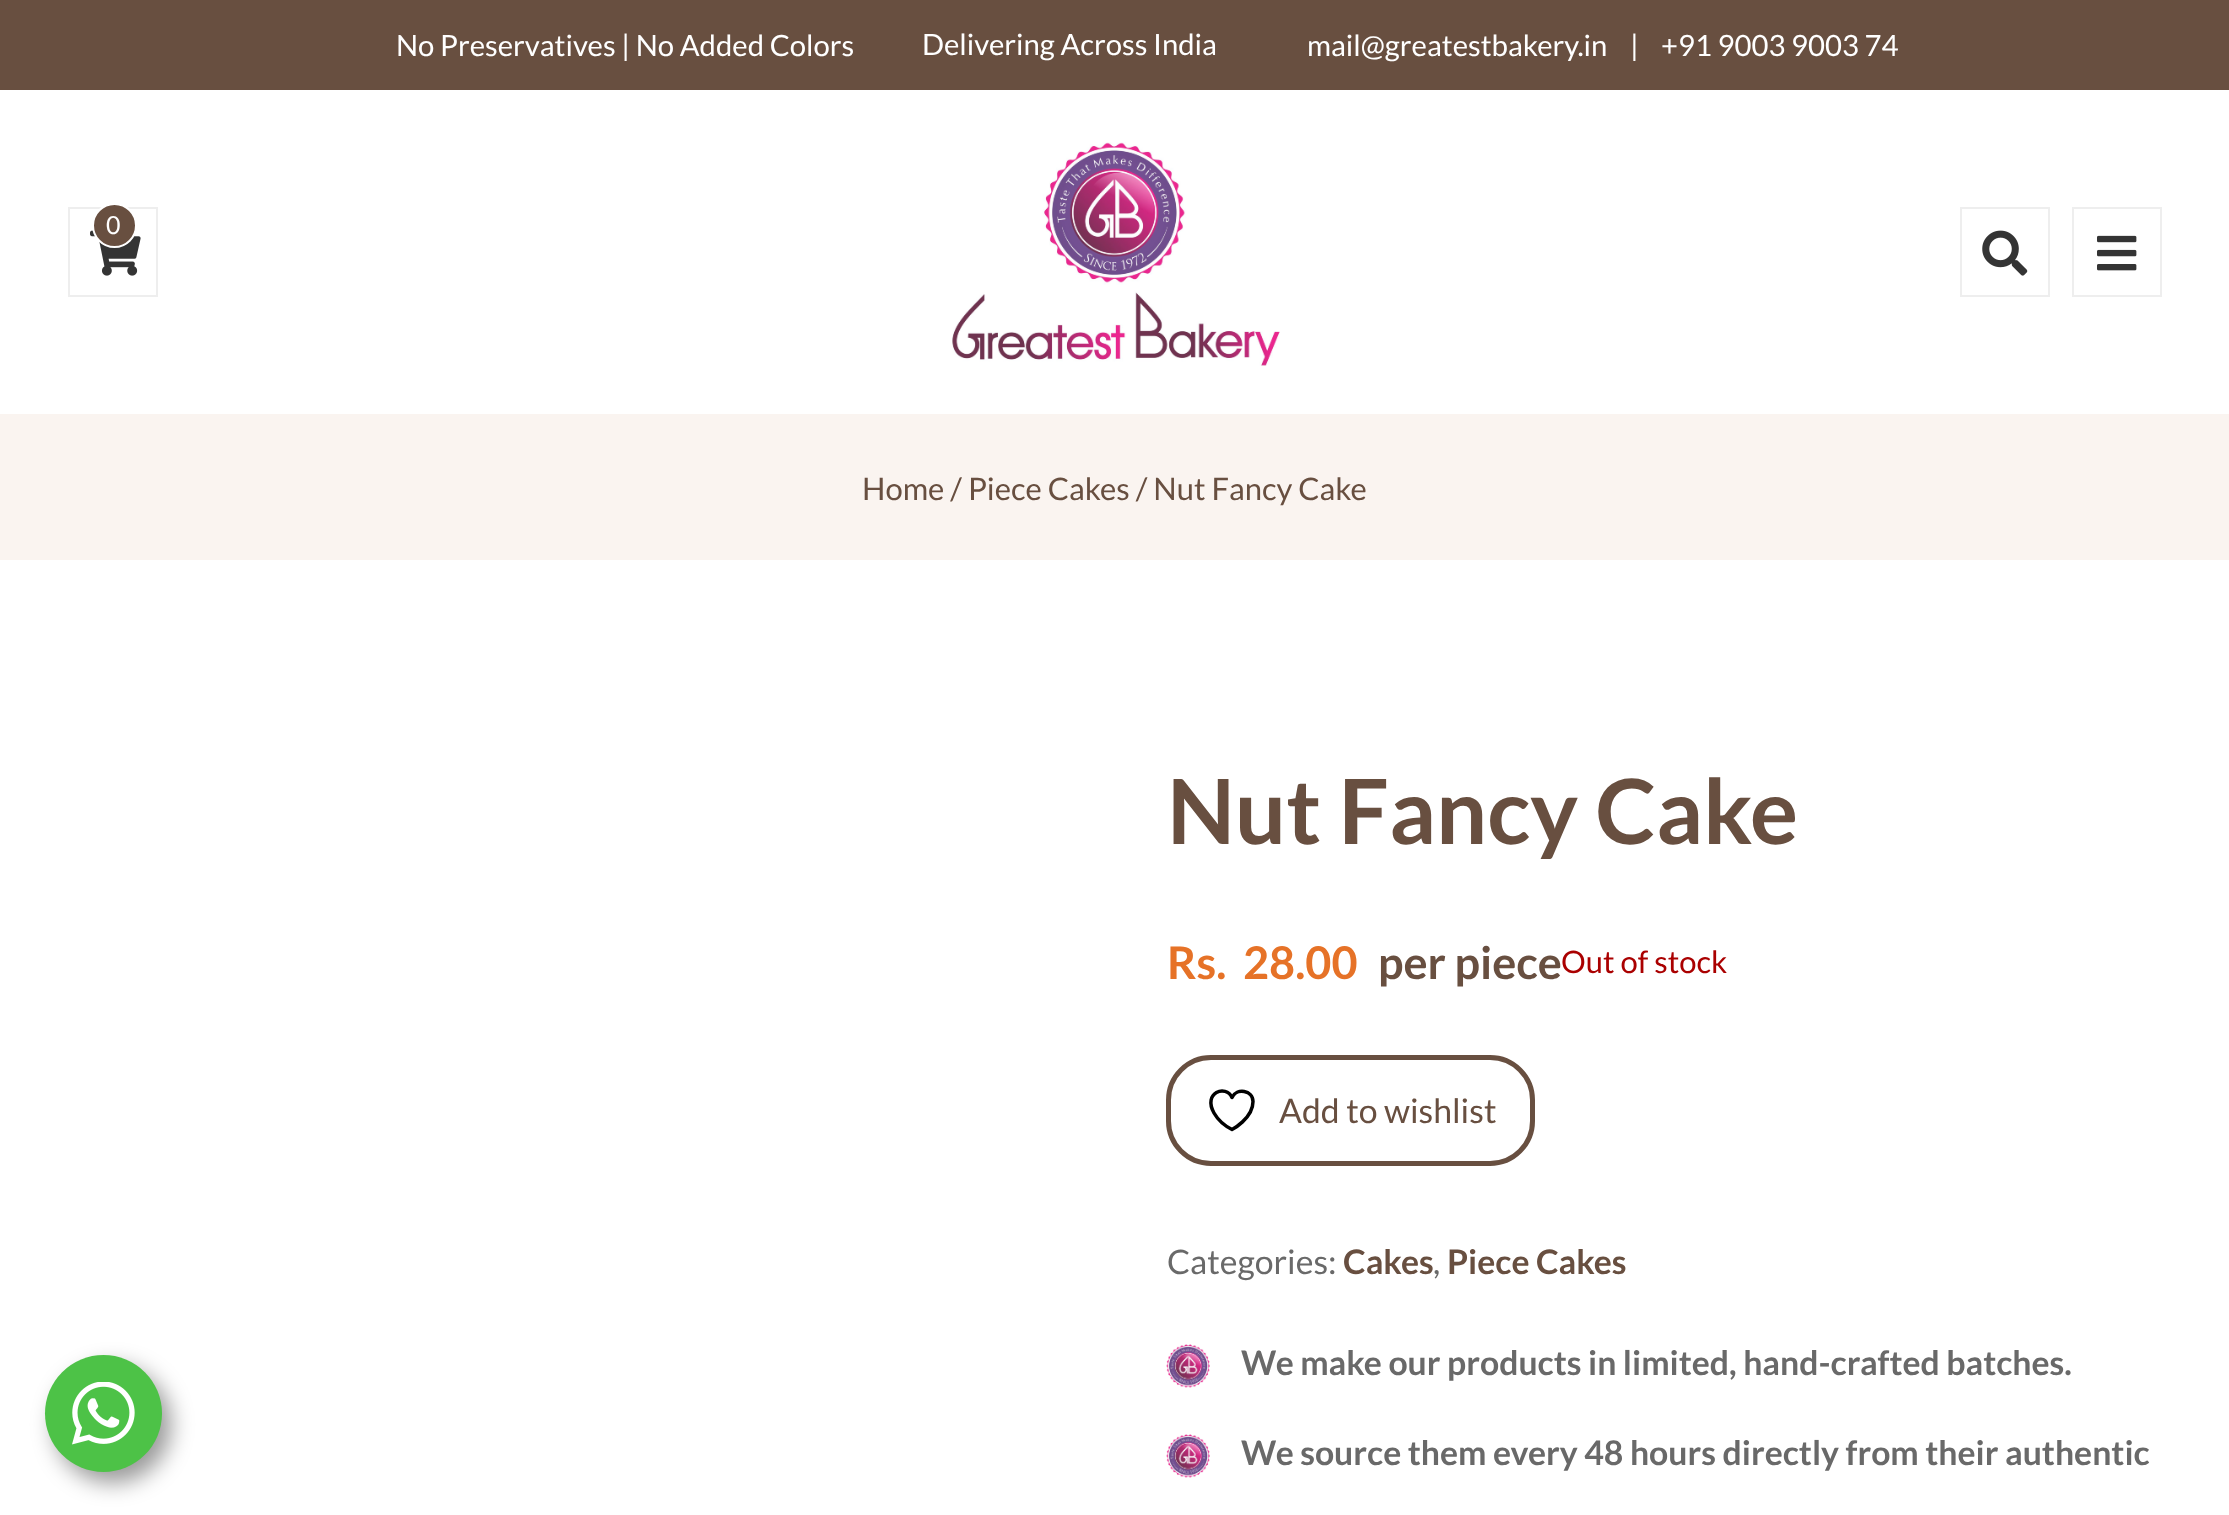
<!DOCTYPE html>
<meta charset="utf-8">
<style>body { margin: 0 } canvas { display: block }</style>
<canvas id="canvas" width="2229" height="1515"></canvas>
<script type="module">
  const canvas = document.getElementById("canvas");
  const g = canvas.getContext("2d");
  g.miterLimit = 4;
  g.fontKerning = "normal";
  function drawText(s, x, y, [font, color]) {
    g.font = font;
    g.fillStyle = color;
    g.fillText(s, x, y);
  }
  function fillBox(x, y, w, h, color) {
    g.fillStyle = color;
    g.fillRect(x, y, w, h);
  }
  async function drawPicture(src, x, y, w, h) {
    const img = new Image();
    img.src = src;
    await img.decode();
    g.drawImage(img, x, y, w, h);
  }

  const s1 = ["29.25px Lato", "#FFFFFF"];
  const s2 = ["25px Lato", "#FFFFFF"];
  const s3 = ["31px Lato", "#684F40"];
  const s4 = ["bold 90px Lato", "#684F40"];
  const s5 = ["bold 45px Lato", "#E67227"];
  const s6 = ["bold 45px Lato", "#684F40"];
  const s7 = ["31px Lato", "#AA0000"];
  const s8 = ["33.75px Lato", "#684F40"];
  const s9 = ["33.75px Lato", "#696969"];
  const s10 = ["bold 33.75px Lato", "#684F40"];
  const s11 = ["bold 33.75px Lato", "#696969"];

  fillBox(0, 0, 2229, 1515, "#FFFFFF");
  fillBox(0, 0, 2229, 90, "#684F40");
  drawText("No Preservatives | No Added Colors", 396, 56, s1);
  drawText("Delivering Across India", 922, 55, s1);
  drawText("mail@greatestbakery.in", 1307, 56, s1);
  drawText("|", 1630, 56, s1);
  drawText("+91 9003 9003 74", 1661, 56, s1);
  g.strokeStyle = "#EEEEEE";
  g.lineWidth = 2;
  g.strokeRect(69, 208, 88, 88);
  await drawPicture("pic1.png", 90, 230, 51, 46);
  g.fillStyle = "#684F40";
  g.beginPath();
  g.arc(114.5, 225.5, 21.5, 0, Math.PI * 2);
  g.fill();
  g.strokeStyle = "#FFFFFF";
  g.stroke();
  drawText("0", 106, 234, s2);
  await drawPicture("pic2.png", 952, 142, 328, 224);
  g.strokeStyle = "#EEEEEE";
  g.strokeRect(1961, 208, 88, 88);
  await drawPicture("pic3.png", 1982, 230, 46, 46);
  g.strokeRect(2073, 208, 88, 88);
  await drawPicture("pic4.png", 2097, 235, 40, 36);
  fillBox(0, 414, 2229, 146, "#FAF4F0");
  drawText("Home / Piece Cakes / Nut Fancy Cake", 862, 500, s3);
  drawText("Nut Fancy Cake", 1167, 844, s4);
  drawText("Rs.", 1167, 979, s5);
  drawText("28.00", 1243, 979, s5);
  drawText("per piece", 1378, 979, s6);
  drawText("Out of stock", 1561, 973, s7);
  g.beginPath();
  g.roundRect(1168.5, 1057.5, 364, 106, 42.5);
  g.strokeStyle = "#684F40";
  g.lineWidth = 5;
  g.stroke();
  g.beginPath();
  g.moveTo(1253, 1101.5);
  g.bezierCurveTo(1253, 1090, 1236.5, 1087.5, 1232, 1097.5);
  g.bezierCurveTo(1226, 1084, 1202.5, 1092.5, 1214, 1113);
  g.bezierCurveTo(1218, 1120, 1225, 1126, 1232, 1129.5);
  g.bezierCurveTo(1232, 1129.5, 1253, 1118.5, 1253, 1101.5);
  g.closePath();
  g.strokeStyle = "#000000";
  g.lineWidth = 3.5;
  g.lineCap = "round";
  g.lineJoin = "round";
  g.stroke();
  drawText("Add to wishlist", 1279, 1123, s8);
  drawText("Categories:", 1167, 1274, s9);
  drawText("Cakes", 1343, 1274, s10);
  drawText(",", 1433, 1274, s9);
  drawText("Piece Cakes", 1447, 1274, s10);
  await drawPicture("pic5.png", 1166, 1344, 44, 44);
  drawText("We make our products in limited, hand-crafted batches.", 1241, 1375, s11);
  await drawPicture("pic5.png", 1166, 1434, 44, 44);
  drawText("We source them every 48 hours directly from their authentic", 1241, 1465, s11);
  g.fillStyle = "rgba(0, 0, 0, 0.4)";
  g.filter = "blur(11px)";
  g.beginPath();
  g.roundRect(54, 1366, 117, 117, 58.5);
  g.fill();
  g.filter = "none";
  g.fillStyle = "#4DC247";
  g.beginPath();
  g.arc(103.5, 1413.5, 58.5, 0, Math.PI * 2);
  g.fill();
  await drawPicture("pic6.png", 72, 1382, 63, 63);
</script>
